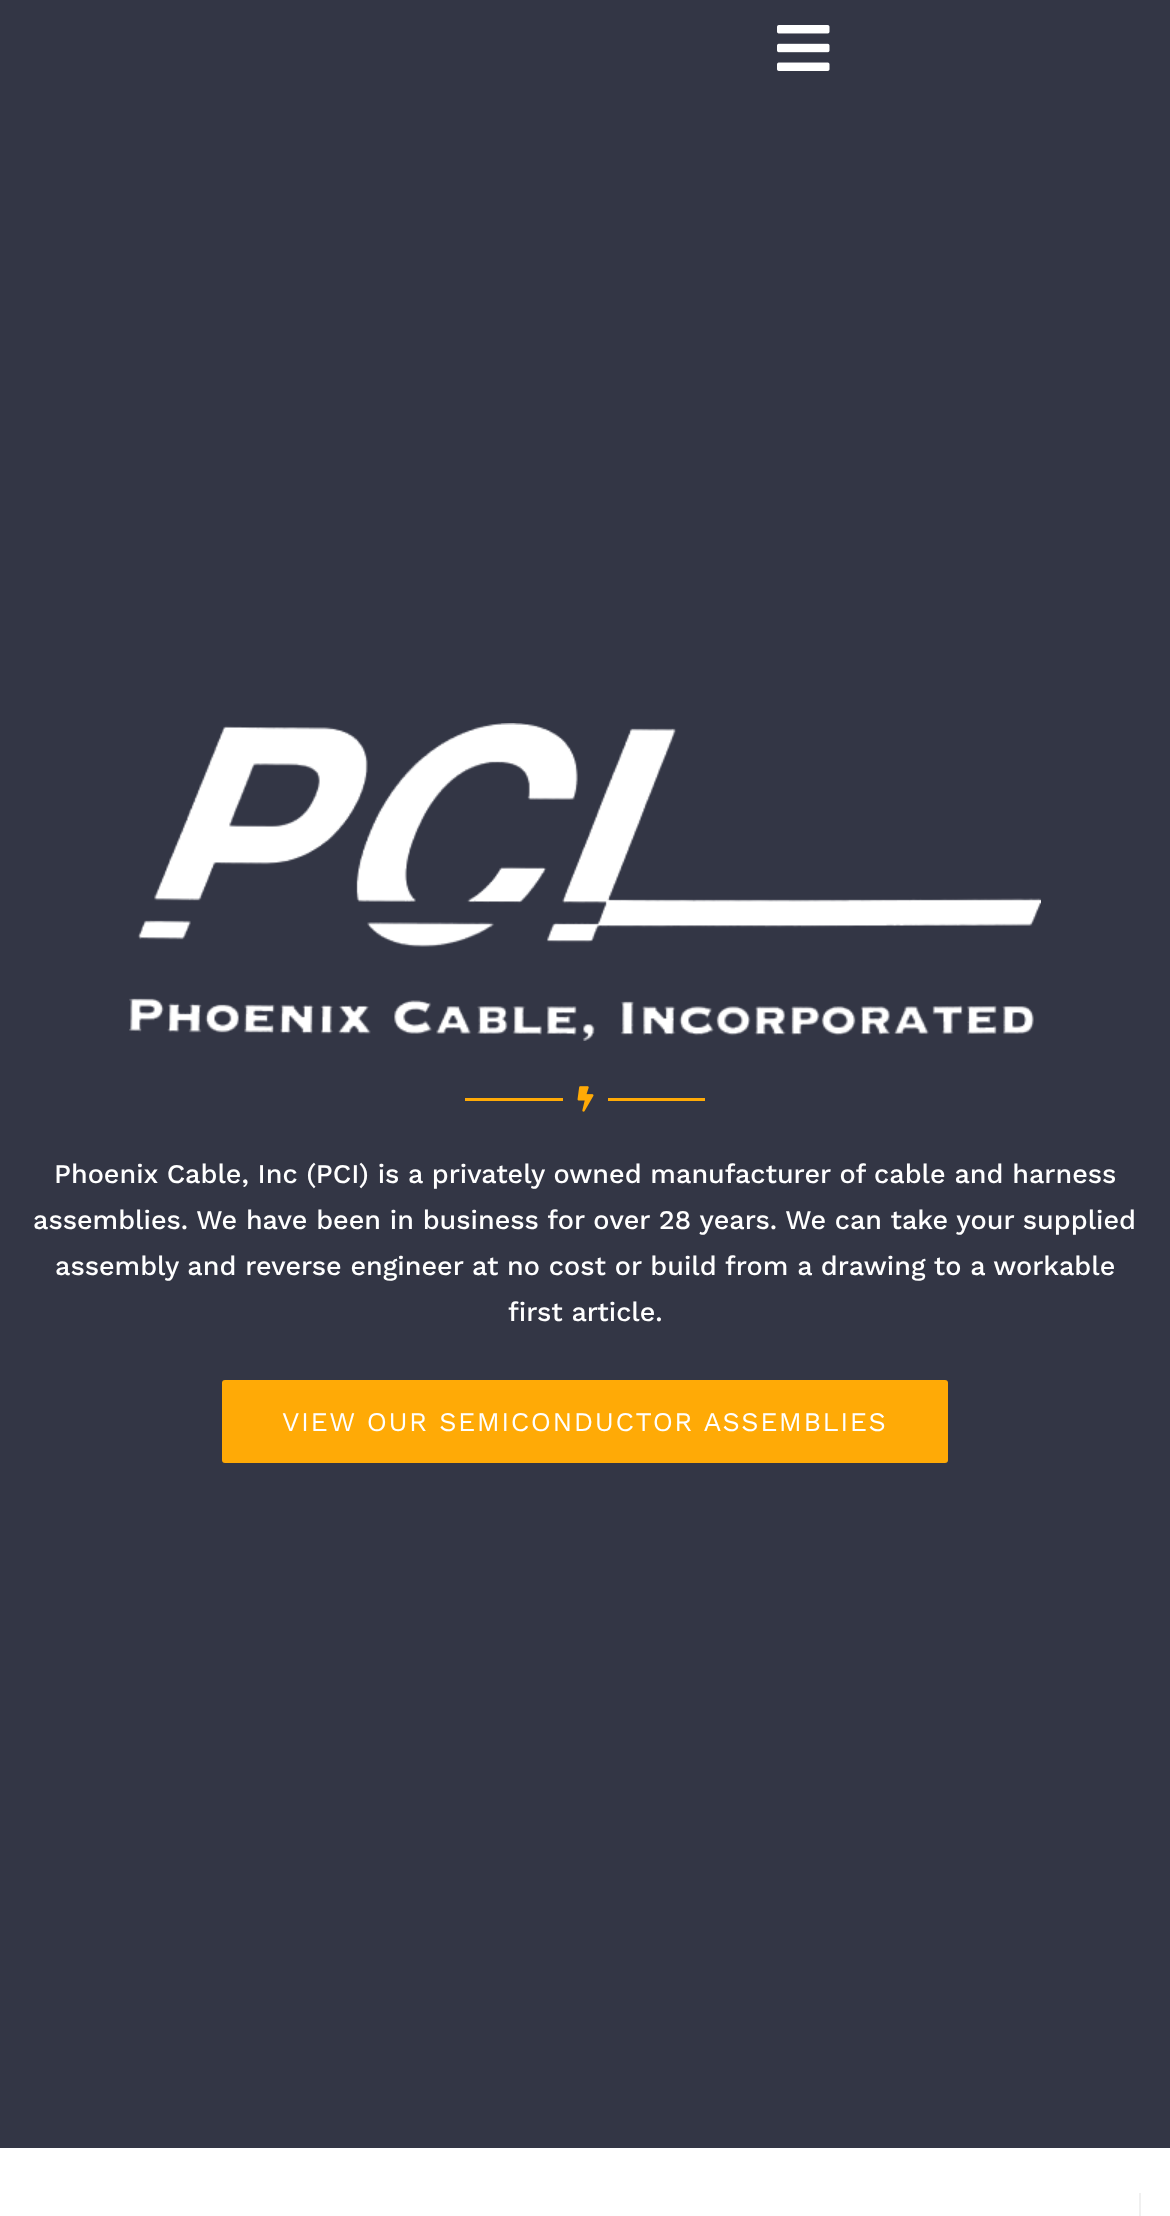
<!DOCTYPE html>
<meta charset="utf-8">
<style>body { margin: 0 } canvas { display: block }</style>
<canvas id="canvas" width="1170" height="2216"></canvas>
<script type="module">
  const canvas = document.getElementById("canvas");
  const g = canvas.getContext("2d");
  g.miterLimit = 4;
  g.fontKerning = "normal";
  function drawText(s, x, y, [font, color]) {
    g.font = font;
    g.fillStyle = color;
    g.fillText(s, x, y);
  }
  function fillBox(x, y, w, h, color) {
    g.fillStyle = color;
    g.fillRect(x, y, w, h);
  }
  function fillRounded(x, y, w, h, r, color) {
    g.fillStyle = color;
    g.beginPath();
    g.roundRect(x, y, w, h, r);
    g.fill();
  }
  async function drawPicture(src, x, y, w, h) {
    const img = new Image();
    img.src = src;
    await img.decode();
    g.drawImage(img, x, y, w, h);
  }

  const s1 = ["500 27px Work Sans", "#FFFFFF"];
  const s2 = ["27px Work Sans", "#FFFFFF"];

  fillBox(0, 0, 1170, 2216, "#333645");
  await drawPicture("pic1.png", 777, 25, 53, 46);
  await drawPicture("pic2.png", 129, 723, 912, 318);
  fillBox(465, 1098, 98, 3, "#FFAA06");
  await drawPicture("pic3.png", 577, 1086, 17, 26);
  fillBox(608, 1098, 97, 3, "#FFAA06");
  drawText("Phoenix Cable, Inc (PCI) is a privately owned manufacturer of cable and harness", 54, 1183, s1);
  drawText("assemblies. We have been in business for over 28 years. We can take your supplied", 33, 1229, s1);
  drawText("assembly and reverse engineer at no cost or build from a drawing to a workable", 55, 1275, s1);
  drawText("first article.", 508, 1321, s1);
  fillRounded(222, 1380, 726, 83, 3, "#FFAA06");
  g.letterSpacing = "1.5px";
  drawText("VIEW OUR SEMICONDUCTOR ASSEMBLIES", 282, 1431, s2);
  fillBox(0, 2148, 1170, 68, "#FFFFFF");
  fillBox(1139, 2193, 2, 23, "#F0F0F0");
</script>
